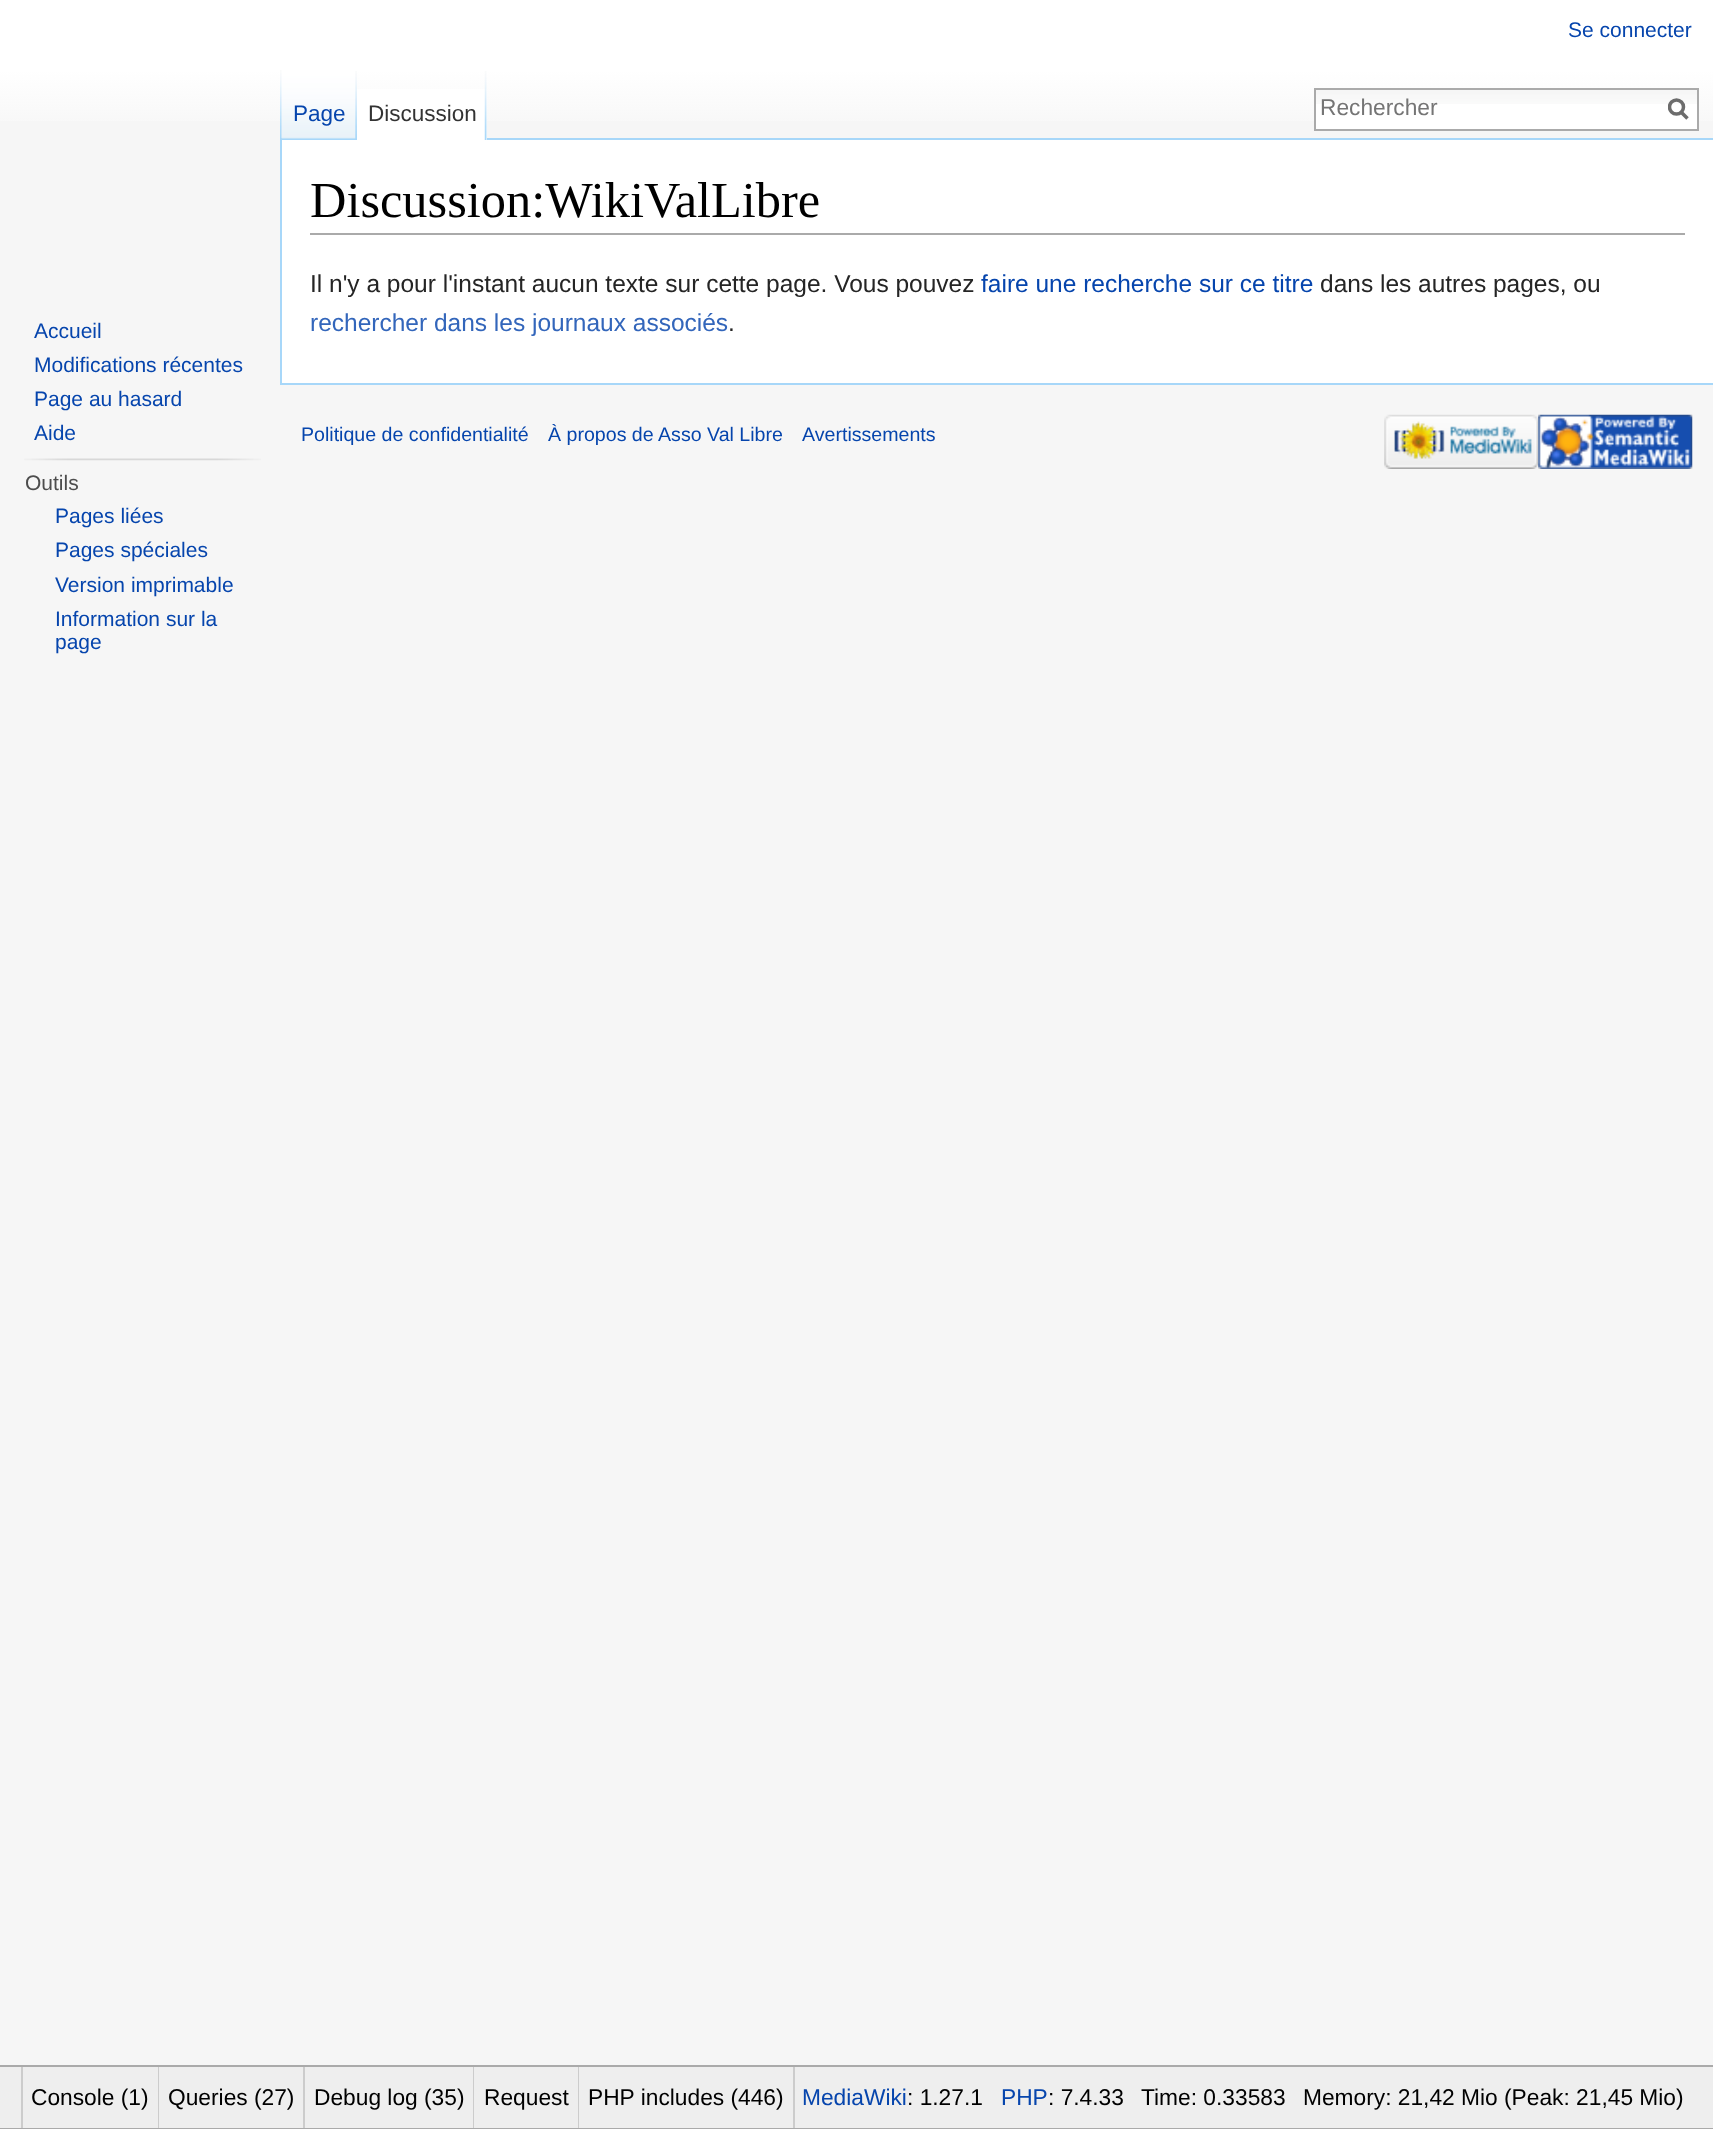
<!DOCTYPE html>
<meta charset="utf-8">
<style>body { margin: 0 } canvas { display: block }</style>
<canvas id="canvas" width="1713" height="2129"></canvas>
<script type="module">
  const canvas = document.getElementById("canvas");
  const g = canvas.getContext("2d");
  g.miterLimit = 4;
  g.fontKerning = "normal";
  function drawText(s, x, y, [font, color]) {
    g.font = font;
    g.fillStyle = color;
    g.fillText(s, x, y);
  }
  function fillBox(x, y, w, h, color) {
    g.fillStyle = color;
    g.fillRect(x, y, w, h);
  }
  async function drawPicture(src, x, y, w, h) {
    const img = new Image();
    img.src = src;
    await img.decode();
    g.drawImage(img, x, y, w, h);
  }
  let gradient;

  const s1 = ["21px Liberation Sans", "#0645AD"];
  const s2 = ["22.5px Liberation Sans", "#0645AD"];
  const s3 = ["22.5px Liberation Sans", "#333333"];
  const s4 = ["22.75px Liberation Sans", "#757575"];
  const s5 = ["21px Liberation Sans", "#4D4D4D"];
  const s6 = ["50.4px Liberation Serif", "#000000"];
  const s7 = ["24.5px Liberation Sans", "#252525"];
  const s8 = ["24.5px Liberation Sans", "#0645AD"];
  const s9 = ["24.5px Liberation Sans", "#3366BB"];
  const s10 = ["19.6px Liberation Sans", "#0645AD"];
  const s11 = ["22.75px Liberation Sans", "#000000"];
  const s12 = ["22.75px Liberation Sans", "#0645AD"];

  fillBox(0, 0, 1713, 2129, "#F6F6F6");
  gradient = g.createLinearGradient(857, 0, 857, 140);
  gradient.addColorStop(0.5, "#FFFFFF");
  gradient.addColorStop(1, "#F6F6F6");
  g.fillStyle = gradient;
  g.fillRect(0, 0, 1713, 121);
  drawText("Se connecter", 1568, 37, s1);
  await drawPicture("pic1.png", 280, 70, 2, 68);
  fillBox(280, 383, 1433, 2, "#A7D7F9");
  fillBox(280, 138, 2, 247, "#A7D7F9");
  await drawPicture("pic2.png", 281, 70, 76, 70);
  await drawPicture("pic3.png", 355, 71, 2, 68);
  drawText("Page", 293, 121, s2);
  fillBox(357, 89, 130, 51, "#FFFFFF");
  await drawPicture("pic4.png", 484, 71, 3, 69);
  drawText("Discussion", 368, 121, s3);
  fillBox(1316, 104, 381, 25, "#FFFFFF");
  await drawPicture("pic5.png", 1316, 90, 381, 14);
  g.strokeStyle = "#AAAAAA";
  g.lineWidth = 2;
  g.strokeRect(1315, 89, 383, 41);
  drawText("Rechercher", 1320, 115, s4);
  g.beginPath();
  g.moveTo(1687.5, 118.5);
  g.lineTo(1680.5, 111.5);
  g.strokeStyle = "#6C6C6C";
  g.lineWidth = 3.5;
  g.stroke();
  g.save();
  g.beginPath();
  g.rect(1668, 98, 21, 23);
  g.clip();
  g.beginPath();
  g.arc(1676.5, 107, 7, 0, Math.PI * 2);
  g.stroke();
  g.restore();
  drawText("Accueil", 34, 338, s1);
  drawText("Modifications récentes", 34, 372, s1);
  drawText("Page au hasard", 34, 406, s1);
  drawText("Aide", 34, 440, s1);
  await drawPicture("pic6.png", 24, 458, 237, 3);
  drawText("Outils", 25, 490, s5);
  drawText("Pages liées", 55, 523, s1);
  drawText("Pages spéciales", 55, 557, s1);
  drawText("Version imprimable", 55, 592, s1);
  drawText("Information sur la", 55, 626, s1);
  drawText("page", 55, 649, s1);
  fillBox(282, 140, 1431, 243, "#FFFFFF");
  fillBox(487, 138, 1226, 2, "#A7D7F9");
  fillBox(310, 233, 1375, 2, "#AAAAAA");
  drawText("Discussion:WikiValLibre", 310, 217, s6);
  drawText("Il n'y a pour l'instant aucun texte sur cette page. Vous pouvez", 310, 292, s7);
  drawText("faire une recherche sur ce titre", 981, 292, s8);
  drawText("dans les autres pages, ou", 1320, 292, s7);
  drawText("rechercher dans les journaux associés", 310, 331, s9);
  drawText(".", 728, 331, s7);
  drawText("Politique de confidentialité", 301, 441, s10);
  drawText("À propos de Asso Val Libre", 548, 441, s10);
  drawText("Avertissements", 802, 441, s10);
  await drawPicture("pic7.png", 1384, 414, 155, 55);
  await drawPicture("pic8.png", 1538, 414, 155, 55);
  fillBox(0, 2067, 1713, 61, "#EEEEEE");
  fillBox(0, 2065, 1713, 2, "#AAAAAA");
  fillBox(0, 2128, 1713, 1, "#AAAAAA");
  fillBox(158, 2067, 1, 61, "#CCCCCC");
  fillBox(21, 2067, 2, 61, "#CCCCCC");
  drawText("Console (1)", 31, 2105, s11);
  fillBox(303, 2067, 2, 61, "#CCCCCC");
  drawText("Queries (27)", 168, 2105, s11);
  fillBox(473, 2067, 1, 61, "#CCCCCC");
  drawText("Debug log (35)", 314, 2105, s11);
  fillBox(578, 2067, 1, 61, "#CCCCCC");
  drawText("Request", 484, 2105, s11);
  fillBox(793, 2067, 2, 61, "#CCCCCC");
  drawText("PHP includes (446)", 588, 2105, s11);
  drawText("MediaWiki", 802, 2105, s12);
  drawText(": 1.27.1", 907, 2105, s11);
  drawText("PHP", 1001, 2105, s12);
  drawText(": 7.4.33", 1048, 2105, s11);
  drawText("Time: 0.33583", 1141, 2105, s11);
  drawText("Memory: 21,42 Mio (Peak: 21,45 Mio)", 1303, 2105, s11);
</script>
